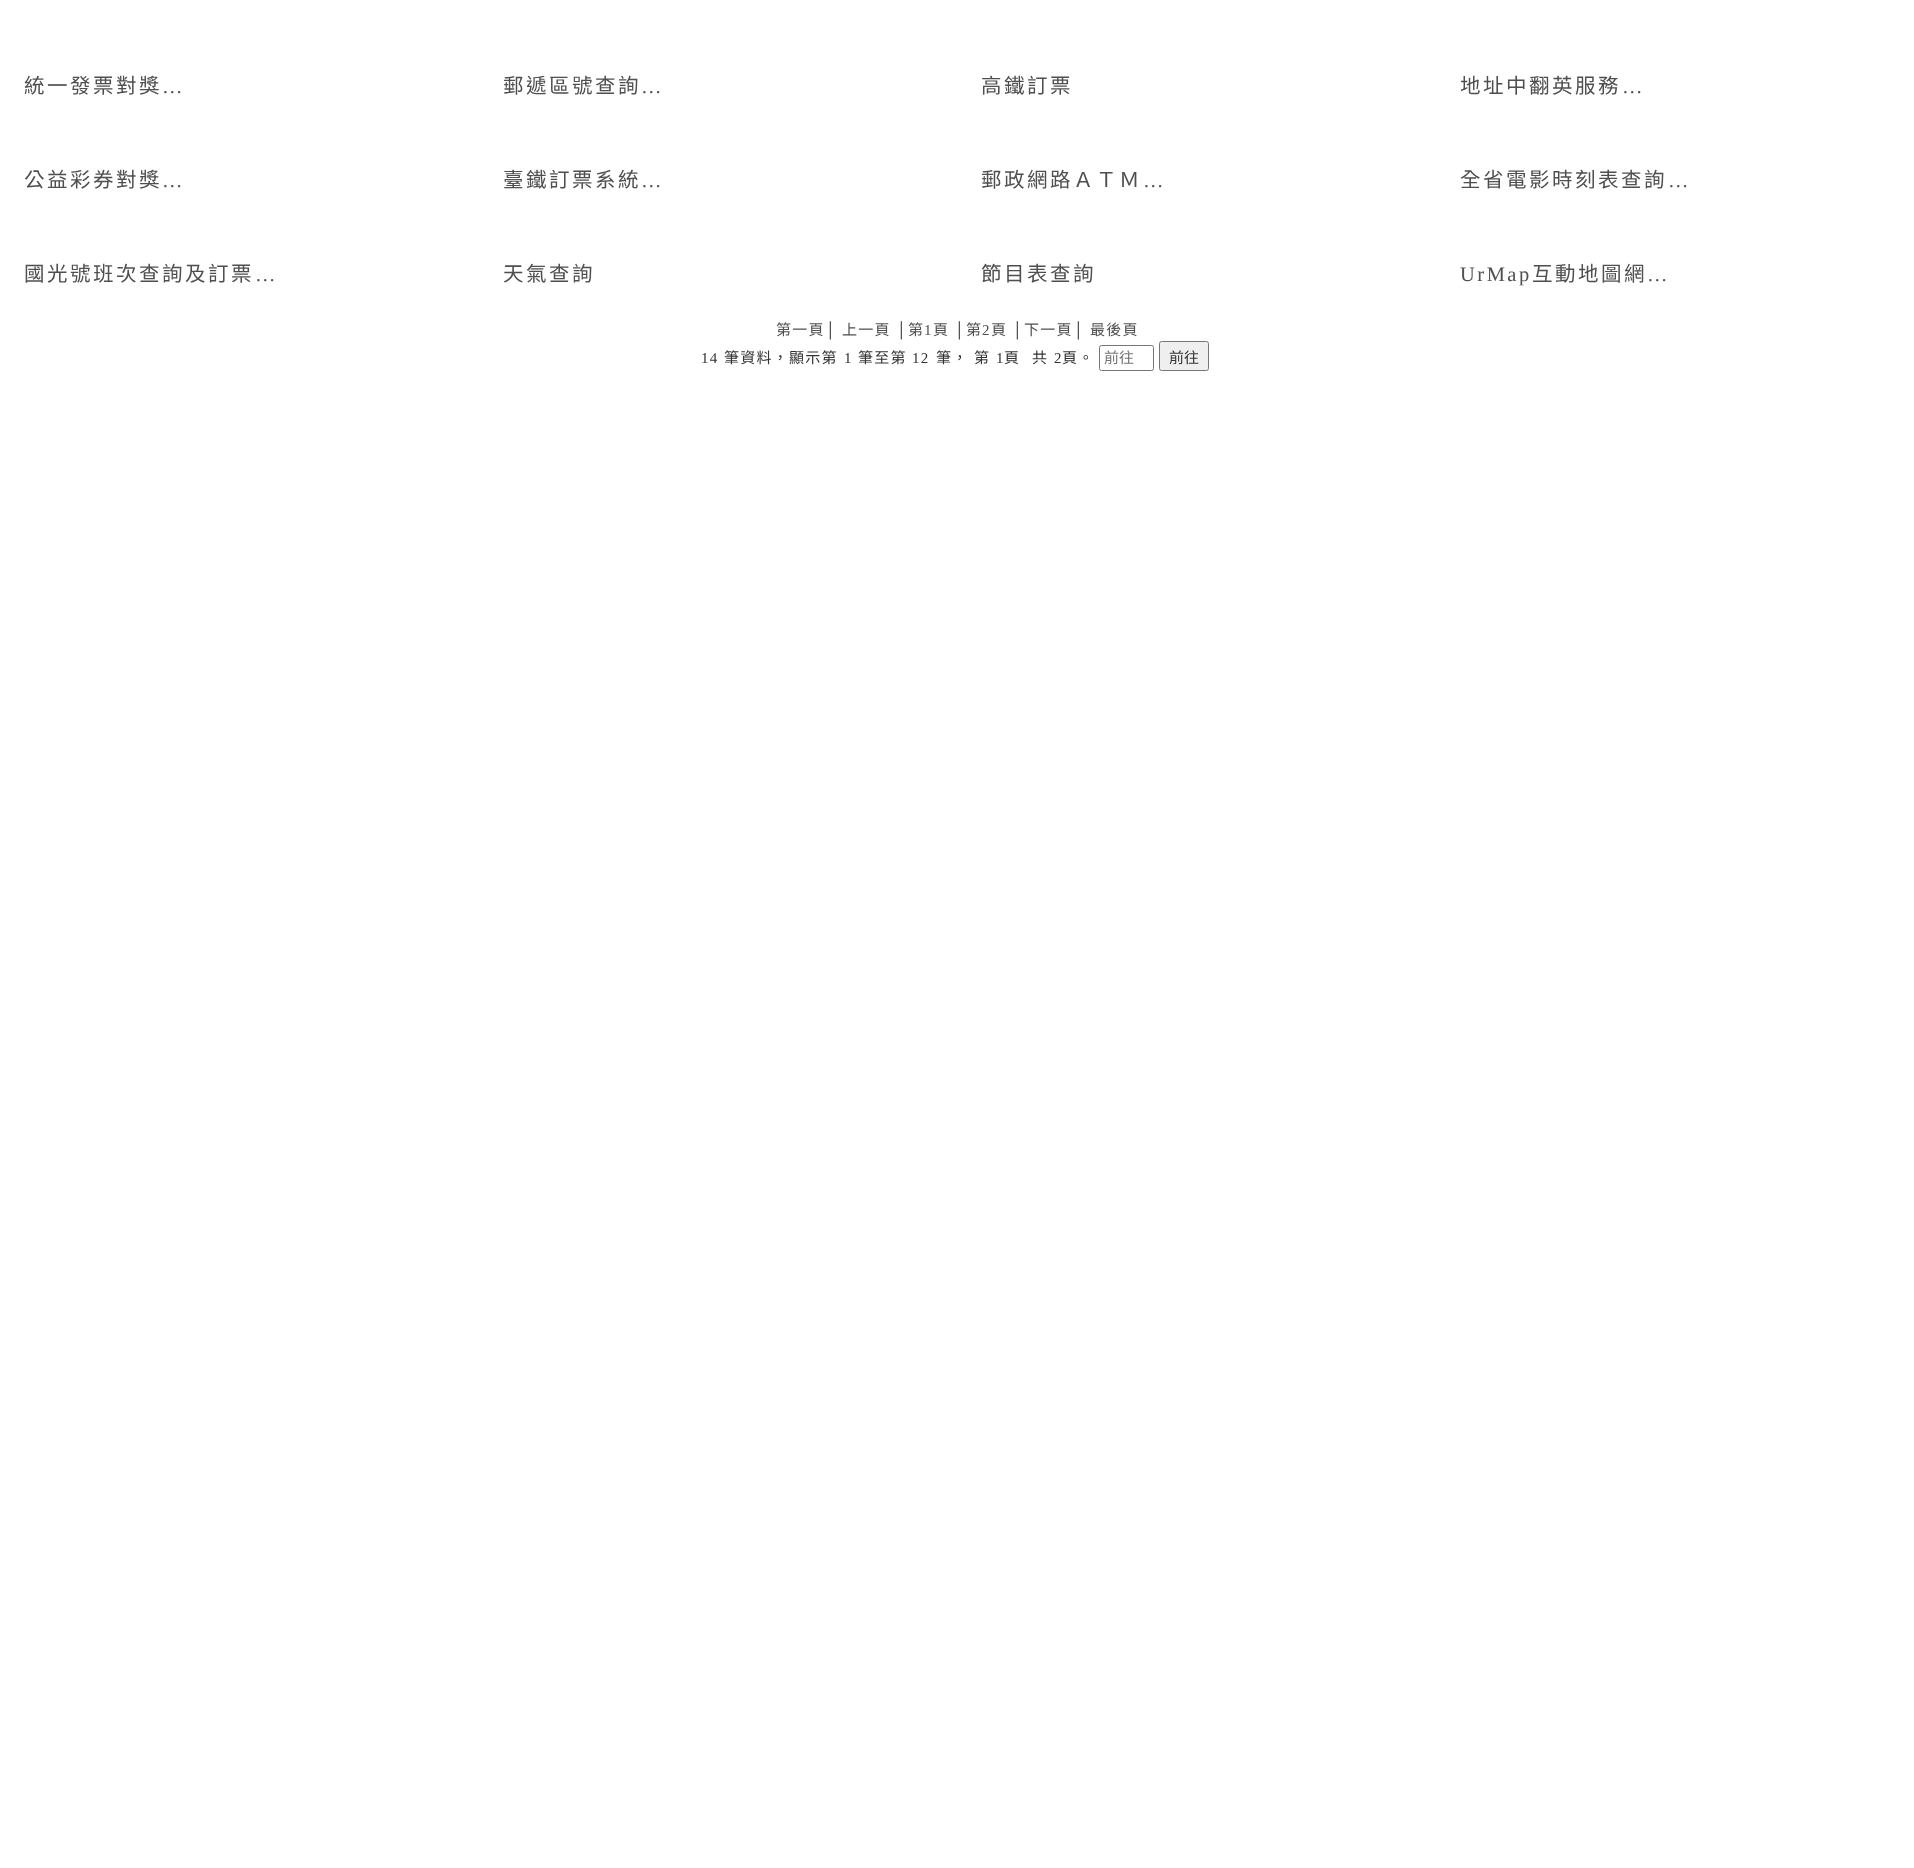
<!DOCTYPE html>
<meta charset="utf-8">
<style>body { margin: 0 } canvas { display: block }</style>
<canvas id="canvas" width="1914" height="1868"></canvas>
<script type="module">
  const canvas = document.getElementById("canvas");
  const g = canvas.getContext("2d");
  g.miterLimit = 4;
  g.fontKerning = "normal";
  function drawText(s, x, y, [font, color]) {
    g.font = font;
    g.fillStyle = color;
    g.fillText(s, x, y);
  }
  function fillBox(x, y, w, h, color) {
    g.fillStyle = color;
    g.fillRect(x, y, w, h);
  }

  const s1 = ["20.5px Noto Sans CJK TC", "#4F4F4F"];
  const s2 = ["20.5px Liberation Serif", "#4F4F4F"];
  const s3 = ["15px Noto Sans CJK TC", "#4F4F4F"];
  const s4 = ["15px Liberation Serif", "#333333"];
  const s5 = ["15px Liberation Serif", "#4F4F4F"];
  const s6 = ["15px Noto Sans CJK TC", "#333333"];
  const s7 = ["15px Noto Sans CJK TC", "#757575"];

  fillBox(0, 0, 1914, 1868, "#FFFFFF");
  g.letterSpacing = "2.5px";
  drawText("統一發票對獎", 24, 93, s1);
  drawText("…", 162, 93, s2);
  drawText("郵遞區號查詢", 503, 93, s1);
  drawText("…", 641, 93, s2);
  drawText("高鐵訂票", 981, 93, s1);
  drawText("地址中翻英服務", 1460, 93, s1);
  drawText("…", 1622, 93, s2);
  drawText("公益彩券對獎", 24, 187, s1);
  drawText("…", 162, 187, s2);
  drawText("臺鐵訂票系統", 503, 187, s1);
  drawText("…", 641, 187, s2);
  drawText("郵政網路ＡＴＭ", 981, 187, s1);
  drawText("…", 1143, 187, s2);
  drawText("全省電影時刻表查詢", 1460, 187, s1);
  drawText("…", 1668, 187, s2);
  drawText("國光號班次查詢及訂票", 24, 281, s1);
  drawText("…", 255, 281, s2);
  drawText("天氣查詢", 503, 281, s1);
  drawText("節目表查詢", 981, 281, s1);
  drawText("UrMap", 1460, 281, s2);
  drawText("互動地圖網", 1532, 281, s1);
  drawText("…", 1647, 281, s2);
  g.letterSpacing = "1.25px";
  drawText("第一頁", 776, 335, s3);
  drawText("│", 825, 335, s4);
  drawText("上一頁", 842, 335, s3);
  drawText("│", 896, 335, s4);
  drawText("第", 908, 335, s3);
  drawText("1", 924, 335, s5);
  drawText("頁", 933, 335, s3);
  drawText("│", 954, 335, s4);
  drawText("第", 966, 335, s3);
  drawText("2", 982, 335, s5);
  drawText("頁", 991, 335, s3);
  drawText("│", 1012, 335, s4);
  drawText("下一頁", 1024, 335, s3);
  drawText("│", 1073, 335, s4);
  drawText("最後頁", 1090, 335, s3);
  drawText("14", 701, 363, s4);
  drawText("筆資料，顯示第", 724, 363, s6);
  drawText("1", 844, 363, s4);
  drawText("筆至第", 858, 363, s6);
  drawText("12", 912, 363, s4);
  drawText("筆，", 936, 363, s6);
  drawText("第", 974, 363, s6);
  drawText("1", 996, 363, s4);
  drawText("頁", 1004, 363, s6);
  drawText("共", 1032, 363, s6);
  drawText("2", 1054, 363, s4);
  drawText("頁。", 1062, 363, s6);
  g.beginPath();
  g.roundRect(1099.5, 345.5, 54, 25, 2);
  g.strokeStyle = "#767676";
  g.stroke();
  g.letterSpacing = "0px";
  drawText("前往", 1104, 363, s7);
  g.fillStyle = "#EFEFEF";
  g.beginPath();
  g.roundRect(1159.5, 341.5, 49, 29, 2);
  g.fill();
  g.stroke();
  drawText("前往", 1169, 363, s6);
</script>
